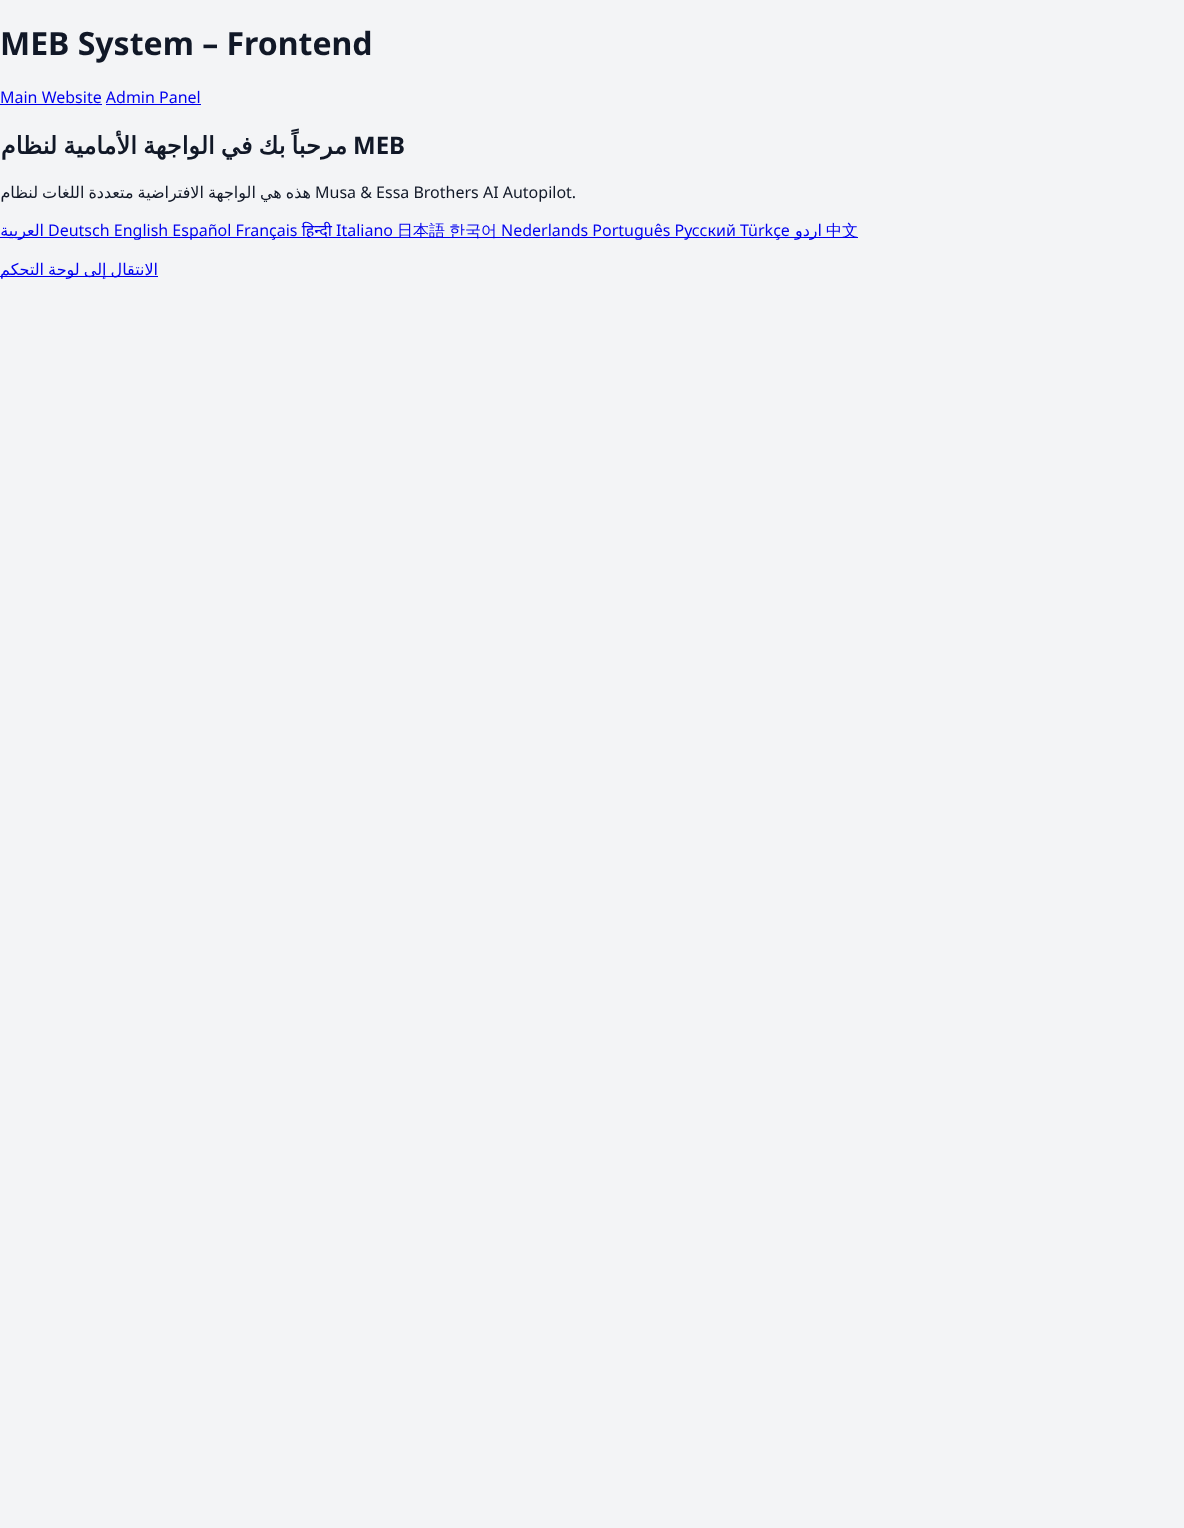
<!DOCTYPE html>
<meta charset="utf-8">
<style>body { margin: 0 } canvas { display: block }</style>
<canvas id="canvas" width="1184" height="1528"></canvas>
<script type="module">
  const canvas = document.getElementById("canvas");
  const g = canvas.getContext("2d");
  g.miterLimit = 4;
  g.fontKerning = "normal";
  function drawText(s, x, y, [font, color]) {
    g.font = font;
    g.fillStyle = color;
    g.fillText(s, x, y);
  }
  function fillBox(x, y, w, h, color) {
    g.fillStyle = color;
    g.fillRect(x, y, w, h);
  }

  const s1 = ["bold 32px Noto Sans", "#111827"];
  const s2 = ["16px Noto Sans", "#0000EE"];
  const s3 = ["bold 24px DejaVu Sans", "#111827"];
  const s4 = ["bold 24px Noto Sans", "#111827"];
  const s5 = ["16px DejaVu Sans", "#111827"];
  const s6 = ["16px Noto Sans", "#111827"];
  const s7 = ["16px DejaVu Sans", "#0000EE"];
  const s8 = ["500 16px WenQuanYi Zen Hei", "#0000EE"];

  fillBox(0, 0, 1184, 1528, "#F3F4F6");
  drawText("MEB System – Frontend", 0, 55, s1);
  drawText("Main Website Admin Panel", 0, 103, s2);
  fillBox(0, 104, 102, 1, "#0000EE");
  fillBox(106, 104, 95, 1, "#0000EE");
  g.wordSpacing = "-1.5px";
  g.direction = "rtl";
  drawText("مرحباً بك في الواجهة الأمامية لنظام", 347, 154, s3);
  g.wordSpacing = "0px";
  g.direction = "ltr";
  drawText("MEB", 353, 154, s4);
  g.wordSpacing = "-1px";
  g.direction = "rtl";
  drawText("هذه هي الواجهة الافتراضية متعددة اللغات لنظام", 311, 198, s5);
  g.wordSpacing = "0px";
  g.direction = "ltr";
  drawText("Musa & Essa Brothers AI Autopilot.", 315, 198, s6);
  fillBox(0, 237, 858, 1, "#0000EE");
  g.direction = "rtl";
  drawText("العربية", 44, 236, s7);
  g.direction = "ltr";
  drawText("Deutsch English Español Français हिन्दी Italiano", 48, 236, s2);
  drawText("日本語", 397, 236, s8);
  drawText("한국어", 449, 236, s8);
  drawText("Nederlands Português Русский Türkçe", 501, 236, s2);
  g.direction = "rtl";
  drawText("اردو", 822, 236, s7);
  g.direction = "ltr";
  drawText("中文", 826, 236, s8);
  fillBox(0, 276, 158, 1, "#0000EE");
  g.wordSpacing = "-1px";
  g.direction = "rtl";
  drawText("الانتقال إلى لوحة التحكم", 158, 275, s7);
</script>
